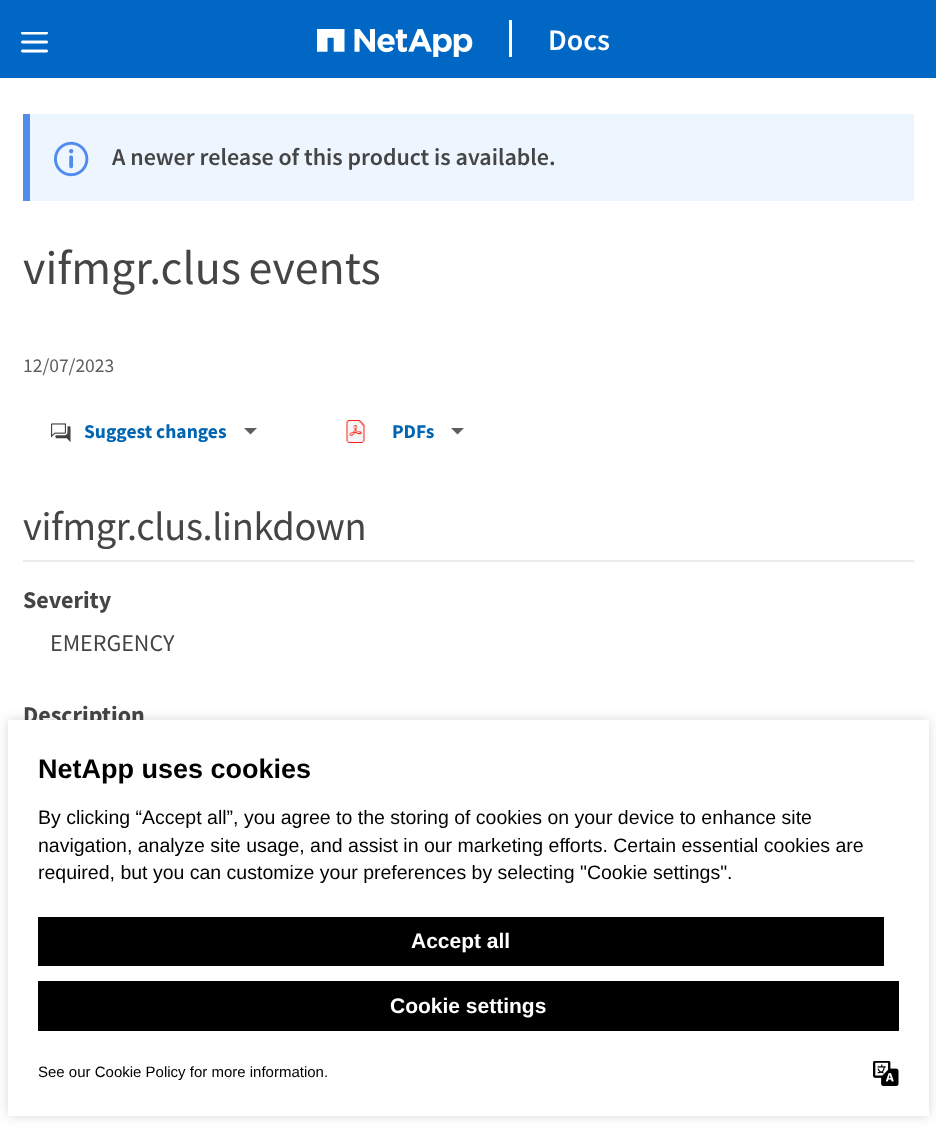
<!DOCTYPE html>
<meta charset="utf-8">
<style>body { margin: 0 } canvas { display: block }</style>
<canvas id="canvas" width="936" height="1130"></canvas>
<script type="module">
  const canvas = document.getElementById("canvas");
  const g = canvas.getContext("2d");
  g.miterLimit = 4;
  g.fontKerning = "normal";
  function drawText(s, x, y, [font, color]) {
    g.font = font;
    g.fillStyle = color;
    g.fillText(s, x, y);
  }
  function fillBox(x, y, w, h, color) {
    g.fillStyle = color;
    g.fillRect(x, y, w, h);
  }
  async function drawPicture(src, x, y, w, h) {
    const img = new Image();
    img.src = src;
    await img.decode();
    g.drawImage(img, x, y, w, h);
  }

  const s1 = ["600 30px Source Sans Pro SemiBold", "#FFFFFF"];
  const s2 = ["600 24px Source Sans Pro SemiBold", "#454545"];
  const s3 = ["48px Source Sans Pro", "#454545"];
  const s4 = ["19.5px Source Sans Pro", "#5E5E5E"];
  const s5 = ["bold 19.5px Source Sans Pro", "#0065B3"];
  const s6 = ["40.5px Source Sans Pro", "#454545"];
  const s7 = ["bold 24px Source Sans Pro", "#454545"];
  const s8 = ["24px Source Sans Pro", "#454545"];
  const s9 = ["bold 27px Liberation Sans", "#000000"];
  const s10 = ["19.5px Liberation Sans", "#000000"];
  const s11 = ["bold 21px Liberation Sans", "#FFFFFF"];
  const s12 = ["15px Liberation Sans", "#000000"];

  fillBox(0, 0, 936, 1130, "#FFFFFF");
  fillBox(0, 0, 936, 78, "#0067C5");
  await drawPicture("pic1.png", 21, 32, 27, 21);
  await drawPicture("pic2.png", 317, 29, 156, 28);
  fillBox(509, 20, 3, 37, "#FFFFFF");
  drawText("Docs", 548, 50, s1);
  fillBox(30, 114, 884, 87, "#EDF6FF");
  fillBox(23, 114, 7, 87, "#518BEC");
  await drawPicture("pic3.png", 54, 141, 35, 36);
  drawText("A newer release of this product is available.", 112, 165, s2);
  g.wordSpacing = "-2px";
  drawText("vifmgr.clus events", 23, 284, s3);
  g.wordSpacing = "0px";
  drawText("12/07/2023", 23, 372, s4);
  await drawPicture("pic4.png", 51, 423, 20, 20);
  drawText("Suggest changes", 84, 438, s5);
  g.fillStyle = "#5E5E5E";
  g.beginPath();
  g.moveTo(250.5, 434.5);
  g.lineTo(244, 428);
  g.lineTo(257, 428);
  g.closePath();
  g.fill();
  await drawPicture("pic5.png", 346, 420, 19, 23);
  drawText("PDFs", 392, 438, s5);
  g.fillStyle = "#5E5E5E";
  g.beginPath();
  g.moveTo(457.5, 434.5);
  g.lineTo(451, 428);
  g.lineTo(464, 428);
  g.closePath();
  g.fill();
  fillBox(23, 560, 891, 2, "#EAECEF");
  g.letterSpacing = "-0.4px";
  drawText("vifmgr.clus.linkdown", 23, 540, s6);
  g.letterSpacing = "0px";
  drawText("Severity", 23, 608, s7);
  drawText("EMERGENCY", 50, 651, s8);
  drawText("Description", 23, 723, s7);
  g.fillStyle = "rgba(0, 0, 0, 0.15)";
  g.filter = "blur(6px)";
  g.beginPath();
  g.rect(8, 720, 921, 396);
  g.fill();
  g.filter = "none";
  fillBox(8, 720, 921, 396, "#FFFFFF");
  drawText("NetApp uses cookies", 38, 778, s9);
  drawText("By clicking “Accept all”, you agree to the storing of cookies on your device to enhance site", 38, 824, s10);
  drawText("navigation, analyze site usage, and assist in our marketing efforts. Certain essential cookies are", 38, 852, s10);
  drawText("required, but you can customize your preferences by selecting \"Cookie settings\".", 38, 879, s10);
  fillBox(38, 917, 846, 49, "#000000");
  drawText("Accept all", 411, 948, s11);
  fillBox(38, 981, 861, 50, "#000000");
  drawText("Cookie settings", 390, 1013, s11);
  drawText("See our Cookie Policy for more information.", 38, 1077, s12);
  await drawPicture("pic6.png", 873, 1061, 26, 25);
</script>
